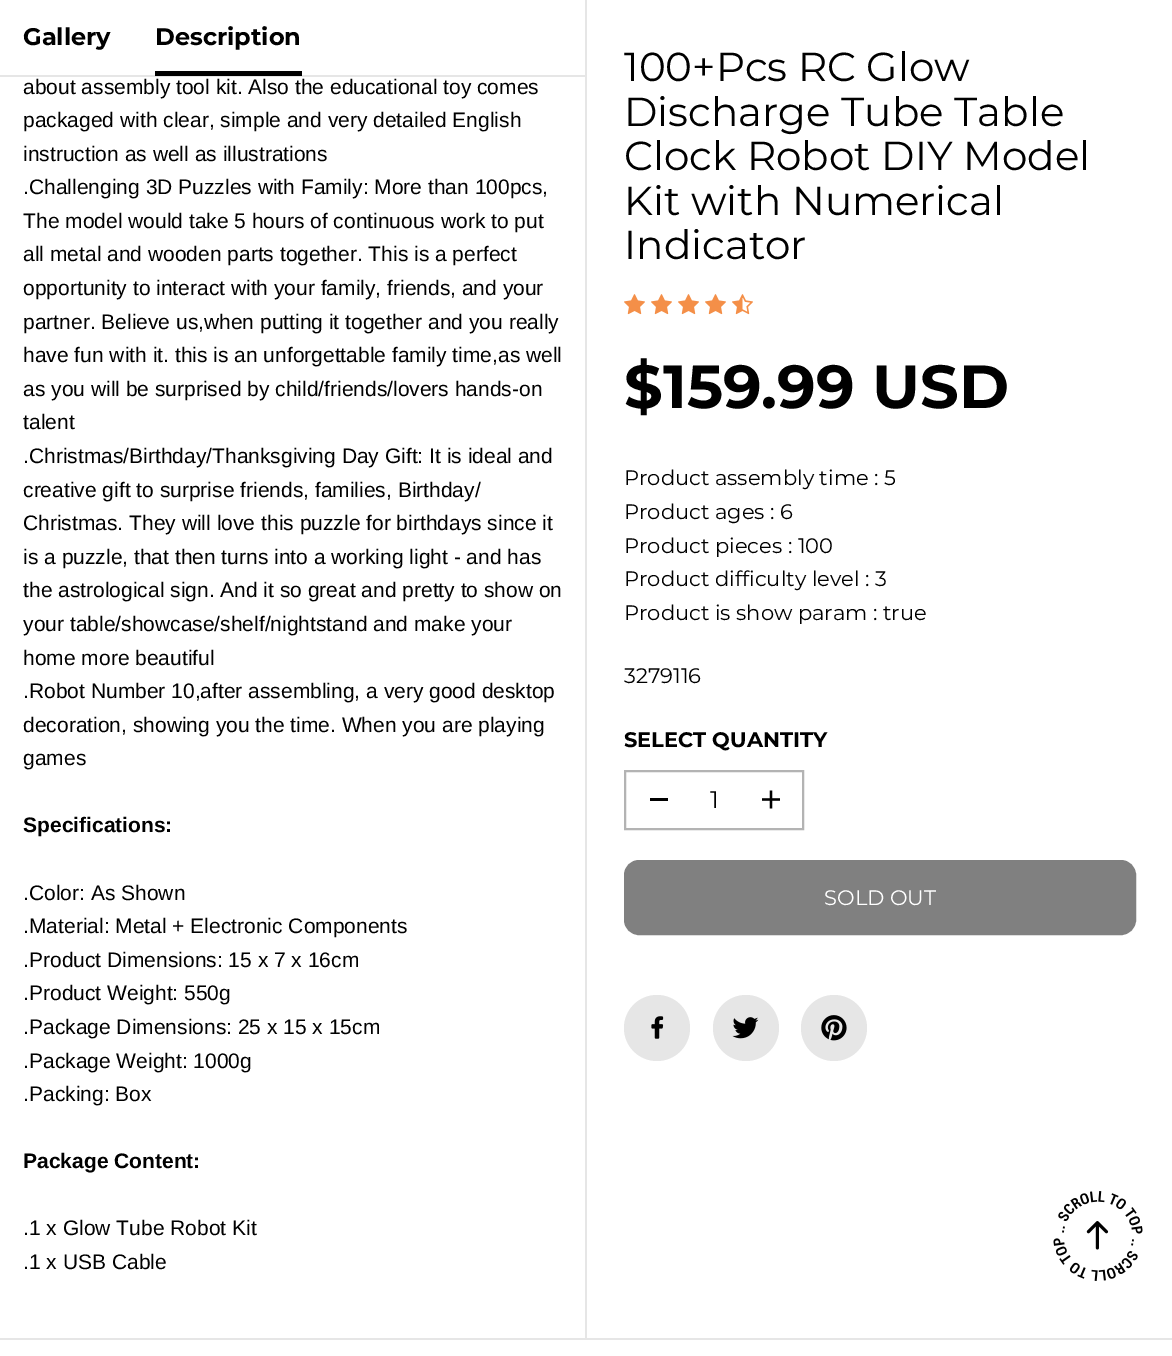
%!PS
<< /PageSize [1172 1356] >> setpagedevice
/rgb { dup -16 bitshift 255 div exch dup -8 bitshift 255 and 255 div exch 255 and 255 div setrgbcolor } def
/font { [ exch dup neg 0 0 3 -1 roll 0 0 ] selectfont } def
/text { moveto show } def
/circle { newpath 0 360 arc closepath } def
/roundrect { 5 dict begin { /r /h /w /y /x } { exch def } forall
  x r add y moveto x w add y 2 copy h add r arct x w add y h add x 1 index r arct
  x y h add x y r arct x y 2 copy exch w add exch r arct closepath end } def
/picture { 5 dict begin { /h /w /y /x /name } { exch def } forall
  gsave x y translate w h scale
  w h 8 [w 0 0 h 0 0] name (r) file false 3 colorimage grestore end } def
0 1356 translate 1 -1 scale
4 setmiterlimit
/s1 { /Montserrat-Bold 24 font 16#000000 rgb } def
/s2 { /LiberationSans-Regular 21 font 16#000000 rgb } def
/s3 { /LiberationSans-Bold 21 font 16#000000 rgb } def
/s4 { /Montserrat-Regular 40.5 font 16#000000 rgb } def
/s5 { /Montserrat-Bold 60.75 font 16#000000 rgb } def
/s6 { /Montserrat-Regular 21 font 16#000000 rgb } def
/s7 { /Montserrat-Bold 21 font 16#000000 rgb } def
/s8 { /Montserrat-Regular 24 font 16#000000 rgb } def
/s9 { /Montserrat-Regular 21 font 16#FFFFFF rgb } def
16#FFFFFF rgb
0 0 1172 1356 rectfill
16#E6E6E6 rgb
0 1338 1172 2 rectfill
585 0 2 1338 rectfill
0 75 585 2 rectfill
s1
(Gallery) 23 45 text
(Description) 155 45 text
155 71 147 5 rectfill
s2
(about assembly tool kit. Also the educational toy comes) 23 94 text
(packaged with clear, simple and very detailed English) 23 127 text
(instruction as well as illustrations) 23 161 text
(.Challenging 3D Puzzles with Family: More than 100pcs,) 23 194 text
(The model would take 5 hours of continuous work to put) 23 228 text
(all metal and wooden parts together. This is a perfect) 23 261 text
(opportunity to interact with your family, friends, and your) 23 295 text
(partner. Believe us,when putting it together and you really) 23 329 text
(have fun with it. this is an unforgettable family time,as well) 23 362 text
(as you will be surprised by child/friends/lovers hands-on) 23 396 text
(talent) 23 429 text
(.Christmas/Birthday/Thanksgiving Day Gift: It is ideal and) 23 463 text
(creative gift to surprise friends, families, Birthday/) 23 497 text
(Christmas. They will love this puzzle for birthdays since it) 23 530 text
(is a puzzle, that then turns into a working light - and has) 23 564 text
(the astrological sign. And it so great and pretty to show on) 23 597 text
(your table/showcase/shelf/nightstand and make your) 23 631 text
(home more beautiful) 23 665 text
(.Robot Number 10,after assembling, a very good desktop) 23 698 text
(decoration, showing you the time. When you are playing) 23 732 text
(games) 23 765 text
s3
(Specifications:) 23 832 text
s2
(.Color: As Shown) 23 900 text
(.Material: Metal + Electronic Components) 23 933 text
(.Product Dimensions: 15 x 7 x 16cm) 23 967 text
(.Product Weight: 550g) 23 1000 text
(.Package Dimensions: 25 x 15 x 15cm) 23 1034 text
(.Package Weight: 1000g) 23 1068 text
(.Packing: Box) 23 1101 text
s3
(Package Content:) 23 1168 text
s2
(.1 x Glow Tube Robot Kit) 23 1235 text
(.1 x USB Cable) 23 1269 text
s4
(100+Pcs RC Glow) 624 81 text
(Discharge Tube Table) 624 126 text
(Clock Robot DIY Model) 624 170 text
(Kit with Numerical) 624 215 text
(Indicator) 624 259 text
(pic1.raw) 624 294 21 21 picture
(pic1.raw) 651 294 21 21 picture
(pic1.raw) 678 294 21 21 picture
(pic1.raw) 705 294 21 21 picture
(pic2.raw) 732 294 21 21 picture
s5
($159.99 USD) 624 408 text
s6
(Product assembly time : 5) 624 485 text
(Product ages : 6) 624 519 text
(Product pieces : 100) 624 553 text
(Product difficulty level : 3) 624 586 text
(Product is show param : true) 624 620 text
(3279116) 624 683 text
s7
(SELECT QUANTITY) 624 747 text
16#B3B3B3 rgb
2 setlinewidth
625 771 178 58 rectstroke
16#000000 rgb
650 798 18 3 rectfill
s8
(1) 710 808 text
(pic3.raw) 762 790 18 19 picture
16#808080 rgb
625 861 510 73 14 roundrect gsave fill grestore
stroke
s9
(SOLD OUT) 824 905 text
16#E6E6E6 rgb
657 1028 33 circle fill
(pic4.raw) 651 1016 13 23 picture
746 1028 33 circle fill
(pic5.raw) 732 1017 27 22 picture
834 1028 33 circle fill
(pic6.raw) 821 1015 26 26 picture
(pic8.raw) 1086 1221 23 29 picture
(pic7.raw) 1053 1191 90 90 picture
showpage
